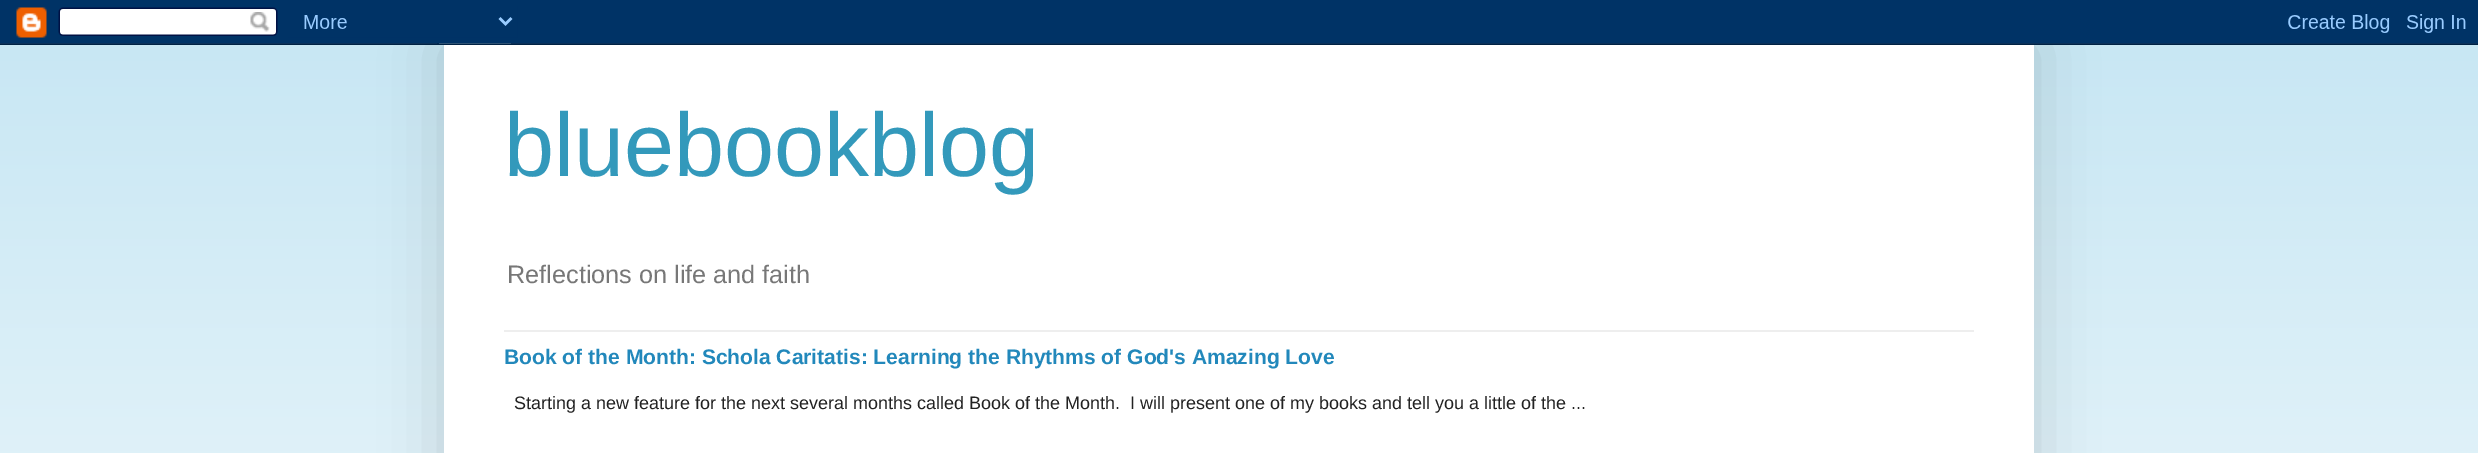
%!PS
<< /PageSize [2478 453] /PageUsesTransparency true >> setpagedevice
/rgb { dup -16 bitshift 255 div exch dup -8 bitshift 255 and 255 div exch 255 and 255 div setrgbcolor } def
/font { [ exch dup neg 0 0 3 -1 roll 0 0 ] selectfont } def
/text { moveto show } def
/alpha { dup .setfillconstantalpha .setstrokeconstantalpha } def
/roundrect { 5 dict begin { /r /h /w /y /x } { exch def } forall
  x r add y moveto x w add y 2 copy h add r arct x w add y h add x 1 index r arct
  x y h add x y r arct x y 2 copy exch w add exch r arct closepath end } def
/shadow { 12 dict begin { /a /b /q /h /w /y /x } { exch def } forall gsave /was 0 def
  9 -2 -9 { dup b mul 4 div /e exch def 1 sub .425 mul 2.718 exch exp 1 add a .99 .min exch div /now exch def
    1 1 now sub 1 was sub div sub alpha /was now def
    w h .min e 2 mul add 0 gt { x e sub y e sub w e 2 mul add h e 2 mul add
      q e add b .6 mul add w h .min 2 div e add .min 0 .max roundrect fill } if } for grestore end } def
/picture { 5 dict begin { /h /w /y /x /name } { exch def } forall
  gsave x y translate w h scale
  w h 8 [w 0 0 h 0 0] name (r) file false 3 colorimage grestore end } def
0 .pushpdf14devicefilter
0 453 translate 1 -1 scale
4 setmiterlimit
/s1 { /LiberationSans-Regular 90 font 16#3399BB rgb } def
/s2 { /LiberationSans-Regular 25.25 font 16#777777 rgb } def
/s3 { /LiberationSans-Bold 21.05 font 16#2288BB rgb } def
/s4 { /LiberationSans-Regular 18 font 16#222222 rgb } def
16#C2E4F2 rgb
0 0 2478 453 rectfill
(pic2.raw) 0 43 2478 410 picture
16#000000 rgb
444 45 1590 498 0 30 0.15 shadow
(pic1.raw) 0 0 2478 45 picture
16#FFFFFF rgb
444 45 1590 408 rectfill
s1
(bluebookblog) 504 176 text
s2
(Reflections on life and faith) 507 283 text
16#EEEEEE rgb
504 330 1470 2 rectfill
s3
(Book of the Month: Schola Caritatis: Learning the Rhythms of God's Amazing Love) 504 364 text
s4
(Starting a new feature for the next several months called Book of the Month.  I will present one of my books and tell you a little of the ...) 514 409 text
.poppdf14devicefilter showpage
